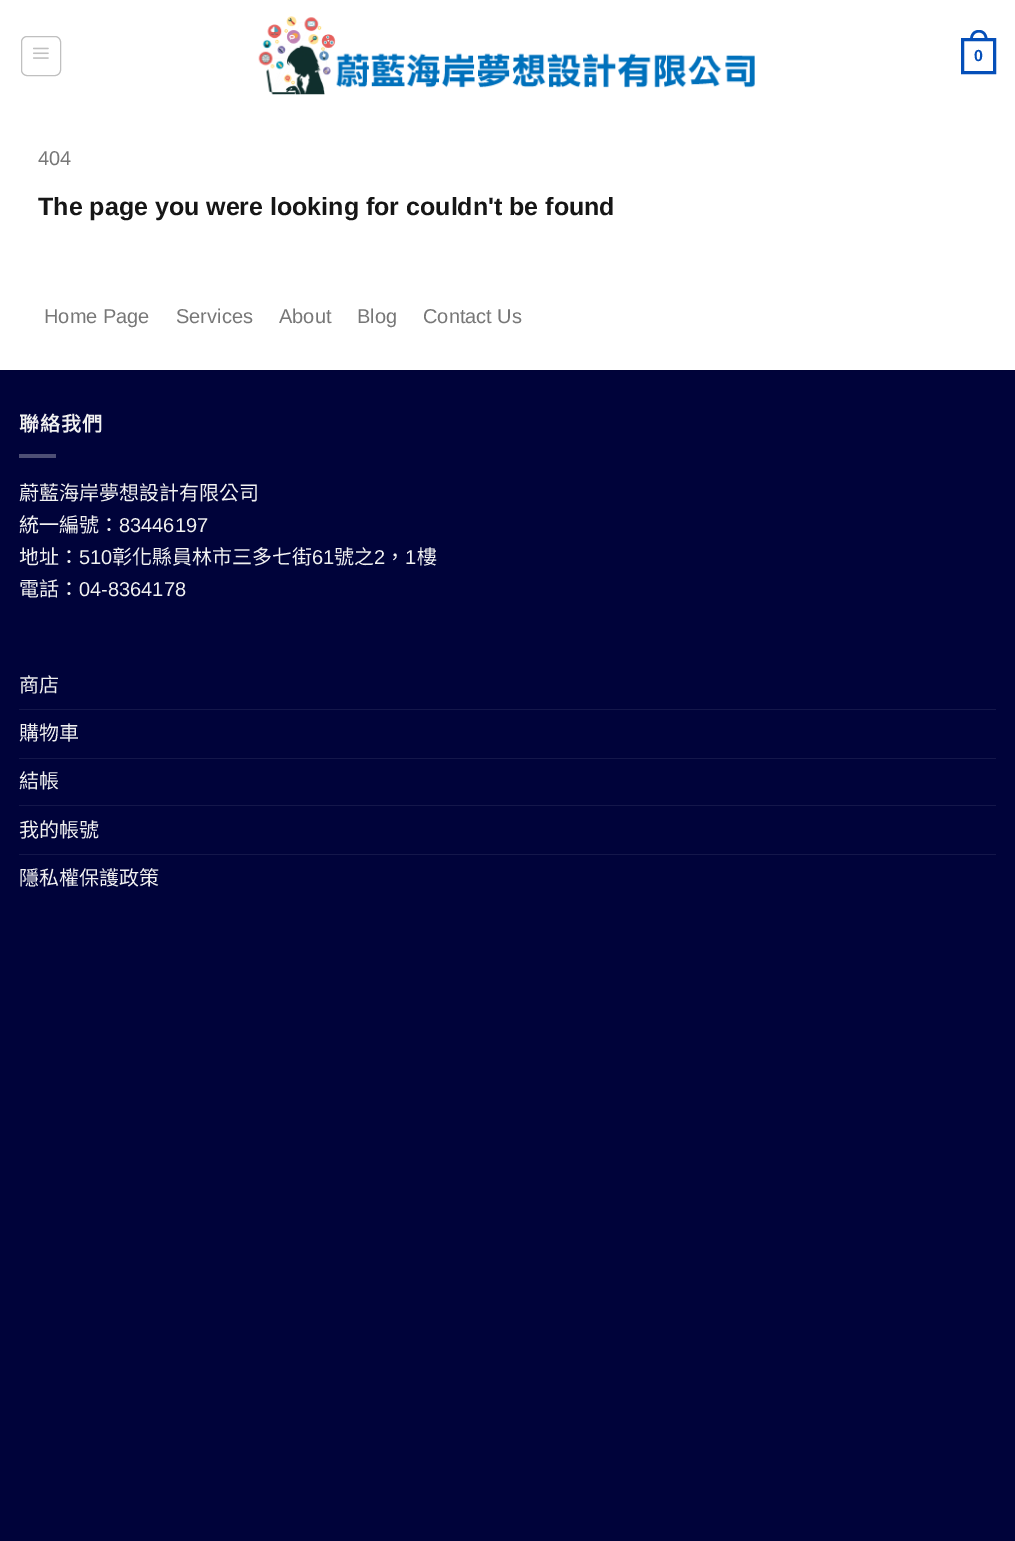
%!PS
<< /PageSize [1015 1541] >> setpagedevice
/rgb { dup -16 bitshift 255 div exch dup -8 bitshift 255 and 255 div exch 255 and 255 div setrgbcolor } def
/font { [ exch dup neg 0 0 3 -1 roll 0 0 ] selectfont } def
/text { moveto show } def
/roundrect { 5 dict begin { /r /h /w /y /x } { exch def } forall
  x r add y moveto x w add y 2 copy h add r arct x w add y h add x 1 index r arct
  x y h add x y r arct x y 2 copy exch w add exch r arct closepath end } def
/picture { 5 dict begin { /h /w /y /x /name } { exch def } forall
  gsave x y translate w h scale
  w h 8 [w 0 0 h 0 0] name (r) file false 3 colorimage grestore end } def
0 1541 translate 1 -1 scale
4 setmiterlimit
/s1 { /LiberationSans-Bold 16 font 16#054FB9 rgb } def
/s2 { /LiberationSans-Regular 20 font 16#777777 rgb } def
/s3 { /LiberationSans-Bold 25 font 16#161616 rgb } def
/s4 { /NotoSansCJKTC-Regular 20 font 16#F1F1F1 rgb } def
/s5 { /LiberationSans-Regular 20 font 16#F1F1F1 rgb } def
16#00033A rgb
0 0 1015 1541 rectfill
16#FFFFFF rgb
0 0 1015 370 rectfill
16#C0C0C0 rgb
21.5 36.5 39 39 5.5 roundrect stroke
(pic1.raw) 33 47 16 12 picture
(pic2.raw) 258 16 497 79 picture
16#054FB9 rgb
3 setlinewidth
962.5 39.5 32 33 rectstroke
979 30 moveto 984.5 30 987.5 34.5 987.5 40 curveto 970 40 lineto 970 34.5 973 30 979 30 curveto closepath 979 32.5 moveto 983 32.5 985 36 985 40 curveto 972.5 40 lineto 972.5 36 974.5 32.5 979 32.5 curveto closepath eofill
s1
(0) 974 61 text
s2
(404) 38 165 text
s3
(The page you were looking for couldn't be found) 38 215 text
s2
(Home Page) 44 323 text
(Services) 176 323 text
(About) 279 323 text
(Blog) 357 323 text
(Contact Us) 423 323 text
16#000337 rgb
0 370 1015 1 rectfill
/NotoSansCJKTC-Bold 20 font
16#F1F1F1 rgb
19 431 moveto 1 0 (聯絡我們) ashow
16#4D4F75 rgb
19 454 37 4 rectfill
s4
(蔚藍海岸夢想設計有限公司) 19 500 text
(統一編號：) 19 532 text
s5
(83446197) 119 532 text
s4
(地址：) 19 564 text
s5
(510) 79 564 text
s4
(彰化縣員林市三多七街) 112 564 text
s5
(61) 312 564 text
s4
(號之) 334 564 text
s5
(2) 374 564 text
s4
(，) 385 564 text
s5
(1) 405 564 text
s4
(樓) 417 564 text
(電話：) 19 596 text
s5
(04-8364178) 79 596 text
s4
(商店) 19 692 text
16#14174A rgb
19 709 977 1 rectfill
s4
(購物車) 19 740 text
16#14174A rgb
19 758 977 1 rectfill
s4
(結帳) 19 788 text
16#14174A rgb
19 805 977 1 rectfill
s4
(我的帳號) 19 837 text
16#14174A rgb
19 854 977 1 rectfill
s4
(隱私權保護政策) 19 885 text
showpage
